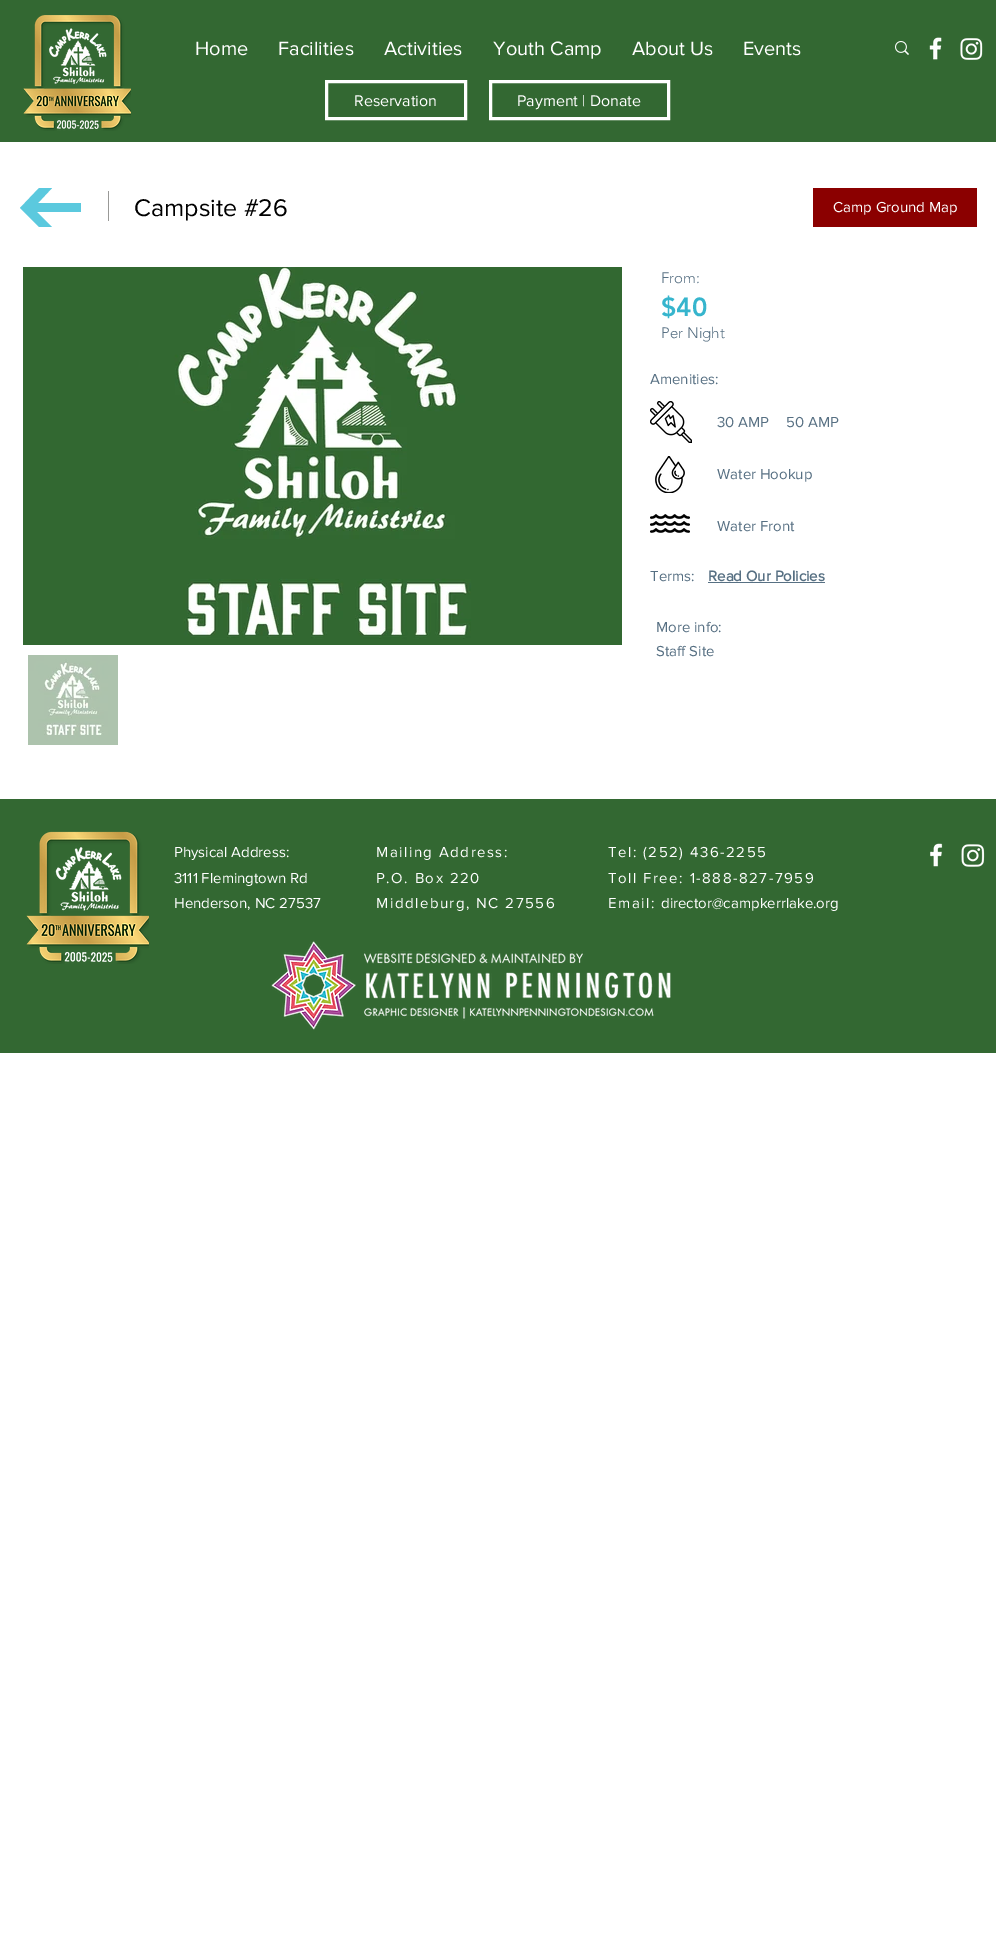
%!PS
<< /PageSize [996 1957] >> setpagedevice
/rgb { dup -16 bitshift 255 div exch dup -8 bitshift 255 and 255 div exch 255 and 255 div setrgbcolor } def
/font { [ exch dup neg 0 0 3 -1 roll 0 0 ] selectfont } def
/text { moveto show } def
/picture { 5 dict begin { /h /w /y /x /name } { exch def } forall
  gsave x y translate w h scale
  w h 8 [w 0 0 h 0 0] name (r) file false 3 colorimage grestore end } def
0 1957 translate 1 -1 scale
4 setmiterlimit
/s1 { /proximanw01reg-Regular 20 font 16#FFFFFF rgb } def
/s2 { /proximanw01reg-Regular 16 font 16#FFFFFF rgb } def
/s3 { /proximanw01reg-Regular 25 font 16#000000 rgb } def
/s4 { /proximanw01reg-Regular 15 font 16#FFFFFF rgb } def
/s5 { /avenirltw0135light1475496-Light 15 font 16#577083 rgb } def
/s6 { /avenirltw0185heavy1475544-Black 26 font 16#36B5CD rgb } def
/s7 { /proximanw01reg-Regular 15 font 16#577083 rgb } def
/s8 { /proximanw01reg-Bold 15 font 16#577083 rgb } def
16#FFFFFF rgb
0 0 996 1957 rectfill
16#336832 rgb
0 0 996 142 rectfill
(pic1.raw) 23 15 108 116 picture
s1
(Home) 195 55 text
(Facilities) 278 55 text
(Activities) 384 55 text
(Youth Camp) 493 55 text
(About Us) 632 55 text
(Events) 743 55 text
(pic2.raw) 895 41 14 14 picture
(pic3.raw) 929 37 13 23 picture
(pic4.raw) 960 38 23 22 picture
3 setlinewidth
326.5 81.5 139 37 rectstroke
s2
(Reservation) 354 106 text
490.5 81.5 178 37 rectstroke
(Payment | Donate) 517 106 text
16#5BC9DE rgb
39 188 moveto 20 208 lineto 39 227 lineto 52 227 lineto 37 212 lineto 81 212 lineto 81 203 lineto 38 203 lineto 52 188 lineto closepath fill
16#999997 rgb
108 191 1 30 rectfill
s3
(Campsite #26) 134 216 text
16#8B0000 rgb
813 188 164 39 rectfill
s4
(Camp Ground Map) 833 212 text
(pic5.raw) 23 267 599 378 picture
(pic6.raw) 28 655 90 90 picture
s5
(From:) 661 283 text
s6
($40) 661 316 text
s5
(Per Night) 661 338 text
s7
(Amenities:) 650 384 text
(pic7.raw) 650 401 42 42 picture
(30 AMP) 717 427 text
(50 AMP) 786 427 text
(pic8.raw) 655 456 30 37 picture
(Water Hookup) 717 479 text
(pic9.raw) 650 514 40 19 picture
(Water Front) 717 531 text
(Terms:) 650 581 text
s8
(Read Our Policies) 708 581 text
708 582 117 1 rectfill
s7
(More info:) 656 632 text
(Staff Site) 656 656 text
16#336832 rgb
0 799 996 254 rectfill
(pic10.raw) 26 831 123 133 picture
s4
(Physical Address:) 174 857 text
(3111 Flemingtown Rd) 174 883 text
(Henderson, NC 27537) 174 908 text
376 857 moveto 1.5 0 (Mailing Address:) ashow
376 883 moveto 1.5 0 (P.O. Box 220) ashow
376 908 moveto 1.5 0 (Middleburg, NC 27556) ashow
608 857 moveto 1.5 0 (Tel: \(252\) 436-2255) ashow
608 883 moveto 1.5 0 (Toll Free: 1-888-827-7959) ashow
608 908 moveto 1.5 0 (Email:) ashow
(director@campkerrlake.org) 661 908 text
(pic11.raw) 930 843 13 24 picture
(pic12.raw) 961 844 24 23 picture
(pic13.raw) 271 941 400 89 picture
showpage
